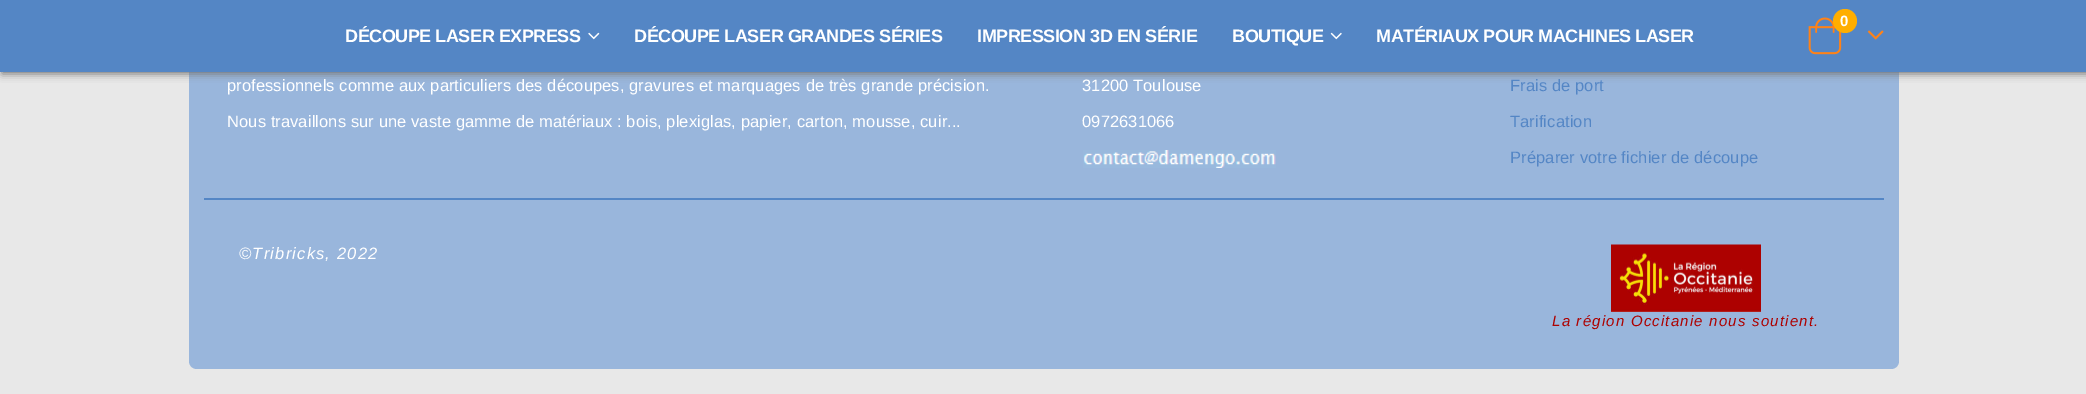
%!PS
<< /PageSize [2086 394] /PageUsesTransparency true >> setpagedevice
/rgb { dup -16 bitshift 255 div exch dup -8 bitshift 255 and 255 div exch 255 and 255 div setrgbcolor } def
/font { [ exch dup neg 0 0 3 -1 roll 0 0 ] selectfont } def
/text { moveto show } def
/alpha { dup .setfillconstantalpha .setstrokeconstantalpha } def
/circle { newpath 0 360 arc closepath } def
/roundrect { 5 dict begin { /r /h /w /y /x } { exch def } forall
  x r add y moveto x w add y 2 copy h add r arct x w add y h add x 1 index r arct
  x y h add x y r arct x y 2 copy exch w add exch r arct closepath end } def
/shadow { 12 dict begin { /a /b /q /h /w /y /x } { exch def } forall gsave /was 0 def
  9 -2 -9 { dup b mul 4 div /e exch def 1 sub .425 mul 2.718 exch exp 1 add a .99 .min exch div /now exch def
    1 1 now sub 1 was sub div sub alpha /was now def
    w h .min e 2 mul add 0 gt { x e sub y e sub w e 2 mul add h e 2 mul add
      q e add b .6 mul add w h .min 2 div e add .min 0 .max roundrect fill } if } for grestore end } def
/picture { 5 dict begin { /h /w /y /x /name } { exch def } forall
  gsave x y translate w h scale
  w h 8 [w 0 0 h 0 0] name (r) file false 3 colorimage grestore end } def
0 .pushpdf14devicefilter
0 394 translate 1 -1 scale
4 setmiterlimit
/s1 { /LiberationSans-Bold 15 font 16#FFFFFF rgb } def
16#E8E8E8 rgb
0 0 2086 394 rectfill
16#99B6DC rgb
189 72 1710 104 rectfill
16#777777 rgb
2 2 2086 72 0 4 1 shadow
16#5486C5 rgb
0 0 2086 72 rectfill
(pic1.raw) 1808 17 34 38 picture
16#FFAE00 rgb
1845 21 12 circle fill
s1
(0) 1840 26 text
(pic2.raw) 1867 30 17 10 picture
/LiberationSans-Bold 18 font
345 42 moveto -0.45 0 (DÉCOUPE LASER EXPRESS) ashow
(pic3.raw) 588 32 12 8 picture
634 42 moveto -0.45 0 (DÉCOUPE LASER GRANDES SÉRIES) ashow
977 42 moveto -0.45 0 (IMPRESSION 3D EN SÉRIE) ashow
1232 42 moveto -0.45 0 (BOUTIQUE) ashow
(pic4.raw) 1330 32 12 8 picture
1376 42 moveto -0.45 0 (MATÉRIAUX POUR MACHINES LASER) ashow
/LiberationSans-Regular 16.5 font
227 91 moveto 0.1 0 (professionnels comme aux particuliers des découpes, gravures et marquages de très grande précision.) ashow
227 127 moveto 0.1 0 (Nous travaillons sur une vaste gamme de matériaux : bois, plexiglas, papier, carton, mousse, cuir...) ashow
1082 91 moveto 0.1 0 (31200 Toulouse) ashow
1082 127 moveto 0.1 0 (0972631066) ashow
(pic5.raw) 1083 150 193 18 picture
16#5486C5 rgb
1510 91 moveto 0.1 0 (Frais de port) ashow
1510 127 moveto 0.1 0 (Tarification) ashow
1510 163 moveto 0.1 0 (Préparer votre fichier de découpe) ashow
16#99B6DC rgb
189 176 moveto 1899 176 lineto 1899 361 lineto 1899 365.5 1895.5 369 1891 369 curveto 197 369 lineto 192.5 369 189 365.5 189 361 curveto closepath fill
16#5486C5 rgb
204 198 1680 2 rectfill
/LiberationSans-Italic 16.5 font
16#FFFFFF rgb
239 259 moveto 1.2 0 (©Tribricks, 2022) ashow
(pic6.raw) 1611 244 150 68 picture
/LiberationSans-Italic 15 font
16#AD0100 rgb
1552 326 moveto 1.2 0 (La région Occitanie nous soutient.) ashow
.poppdf14devicefilter showpage
